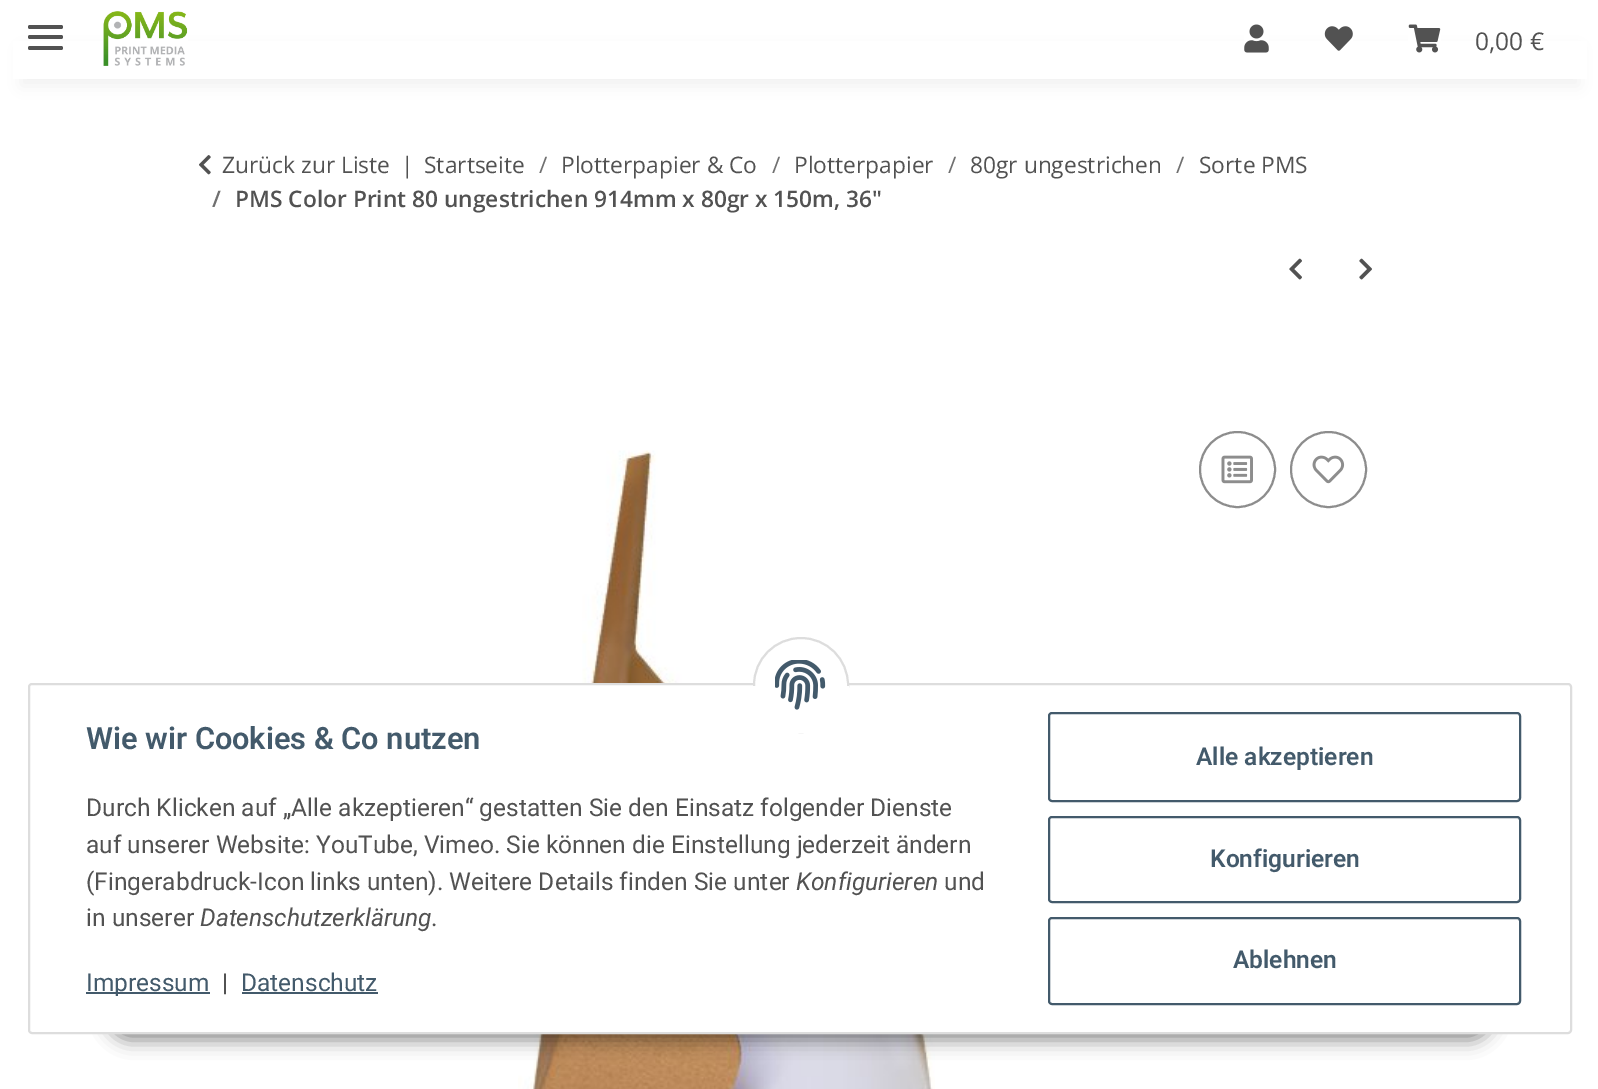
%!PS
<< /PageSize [1598 1089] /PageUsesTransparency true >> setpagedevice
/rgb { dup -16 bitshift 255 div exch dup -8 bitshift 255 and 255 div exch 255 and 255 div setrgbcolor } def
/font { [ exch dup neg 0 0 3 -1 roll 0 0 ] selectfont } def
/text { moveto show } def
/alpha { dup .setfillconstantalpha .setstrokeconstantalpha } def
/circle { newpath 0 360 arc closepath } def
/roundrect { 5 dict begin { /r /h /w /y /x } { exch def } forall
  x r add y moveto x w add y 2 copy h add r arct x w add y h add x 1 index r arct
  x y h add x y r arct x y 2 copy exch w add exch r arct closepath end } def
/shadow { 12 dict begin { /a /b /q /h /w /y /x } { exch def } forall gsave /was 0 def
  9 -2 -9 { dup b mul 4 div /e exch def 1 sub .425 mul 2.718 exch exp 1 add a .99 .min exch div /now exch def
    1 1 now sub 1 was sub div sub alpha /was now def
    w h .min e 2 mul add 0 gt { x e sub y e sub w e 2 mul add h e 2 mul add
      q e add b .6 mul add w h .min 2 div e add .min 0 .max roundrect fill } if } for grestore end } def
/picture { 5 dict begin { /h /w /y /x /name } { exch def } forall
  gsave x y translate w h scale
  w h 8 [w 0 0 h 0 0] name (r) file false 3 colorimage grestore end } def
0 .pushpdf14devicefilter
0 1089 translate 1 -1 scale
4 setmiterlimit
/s1 { /OpenSans-Regular 24.5 font 16#525252 rgb } def
/s2 { /OpenSans-Regular 22.75 font 16#525252 rgb } def
/s3 { /OpenSans-Regular 22.75 font 16#707070 rgb } def
/s4 { /OpenSans-SemiBold 22.75 font 16#707070 rgb } def
/s5 { /OpenSans-SemiBold 22.75 font 16#525252 rgb } def
/s6 { /Roboto-SemiBold 30.75 font 16#435A6B rgb } def
/s7 { /Roboto-Regular 24.5 font 16#525252 rgb } def
/s8 { /Roboto-Italic 24.5 font 16#525252 rgb } def
/s9 { /Roboto-Regular 24.5 font 16#435A6B rgb } def
/s10 { /Roboto-SemiBold 24.5 font 16#435A6B rgb } def
16#FFFFFF rgb
0 0 1598 1089 rectfill
16#000000 rgb
21 49 1558 37 0 8 0.06 shadow
16#FFFFFF rgb
13 41 1574 38 rectfill
16#525252 rgb
28 35 35 4 2 roundrect fill
28 25 35 4 2 roundrect fill
28 46 35 4 2 roundrect fill
(pic1.raw) 103 11 85 55 picture
(pic2.raw) 1244 24 25 29 picture
(pic3.raw) 1324 26 29 25 picture
(pic4.raw) 1408 24 33 29 picture
s1
(0,00 €) 1475 50 text
(pic5.raw) 199 155 12 20 picture
s2
(Zurück zur Liste) 222 173 text
(|) 401 173 text
(Startseite) 424 173 text
s3
(/) 539 173 text
s2
(Plotterpapier & Co) 561 173 text
s3
(/) 772 173 text
s2
(Plotterpapier) 794 173 text
s3
(/) 948 173 text
s2
(80gr ungestrichen) 970 173 text
s3
(/) 1176 173 text
s2
(Sorte PMS) 1199 173 text
s4
(/) 212 207 text
s5
(PMS Color Print 80 ungestrichen 914mm x 80gr x 150m, 36") 235 207 text
(pic6.raw) 1289 258 13 22 picture
(pic7.raw) 1359 258 13 22 picture
(pic8.raw) 518 450 417 639 picture
16#8D8D8D rgb
2 setlinewidth
1237.5 469.5 37.5 circle stroke
(pic9.raw) 1221 455 32 29 picture
1328.5 469.5 37.5 circle stroke
(pic10.raw) 1312 455 33 29 picture
16#000000 rgb
107 984 1386 56 28 9 0.45 shadow
16#FFFFFF rgb
29 684 1542 349 3 roundrect gsave fill grestore
16#DDDDDD rgb
stroke
16#FFFFFF rgb
801 685 47 circle gsave fill grestore
16#DDDDDD rgb
stroke
16#FFFFFF rgb
753 686 96 47 rectfill
(pic11.raw) 775 660 51 50 picture
s6
(Wie wir Cookies & Co nutzen) 86 749 text
s7
(Durch Klicken auf „Alle akzeptieren“ gestatten Sie den Einsatz folgender Dienste) 86 816 text
(auf unserer Website: YouTube, Vimeo. Sie können die Einstellung jederzeit ändern) 86 853 text
(\(Fingerabdruck-Icon links unten\). Weitere Details finden Sie unter) 86 890 text
s8
(Konfigurieren) 796 890 text
s7
(und) 944 890 text
(in unserer) 86 926 text
s8
(Datenschutzerklärung) 200 926 text
s7
(.) 431 926 text
16#435A6B rgb
86 992 124 2 rectfill
(Impressum) 86 991 text
s7
(|) 222 991 text
s9
(Datenschutz) 241 991 text
242 992 136 2 rectfill
1049 713 471 88 3 roundrect stroke
s10
(Alle akzeptieren) 1196 765 text
1049 817 471 85 3 roundrect stroke
(Konfigurieren) 1210 867 text
1049 918 471 86 3 roundrect stroke
(Ablehnen) 1233 968 text
.poppdf14devicefilter showpage
